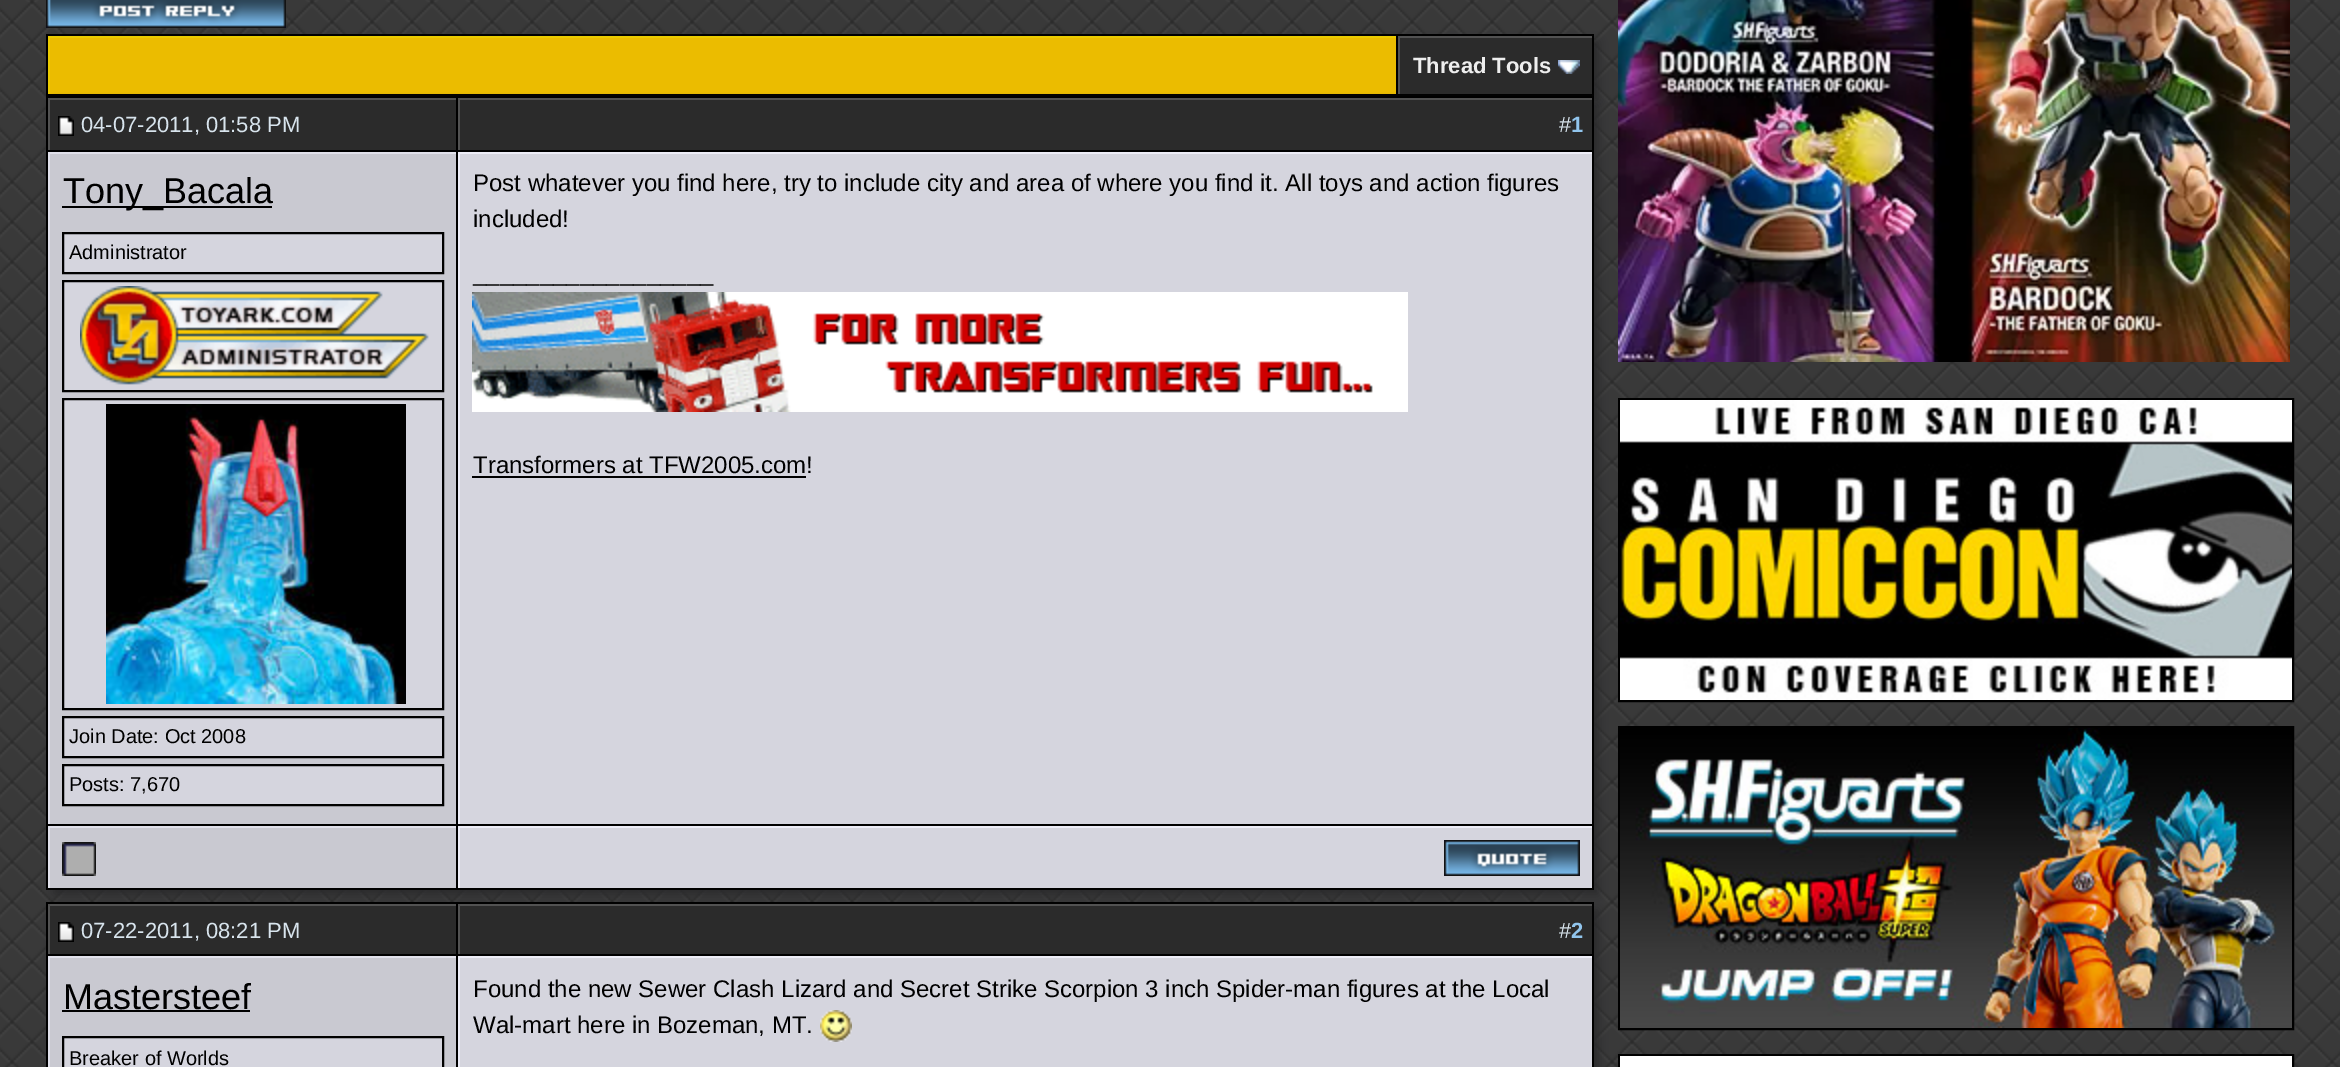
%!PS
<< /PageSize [2340 1067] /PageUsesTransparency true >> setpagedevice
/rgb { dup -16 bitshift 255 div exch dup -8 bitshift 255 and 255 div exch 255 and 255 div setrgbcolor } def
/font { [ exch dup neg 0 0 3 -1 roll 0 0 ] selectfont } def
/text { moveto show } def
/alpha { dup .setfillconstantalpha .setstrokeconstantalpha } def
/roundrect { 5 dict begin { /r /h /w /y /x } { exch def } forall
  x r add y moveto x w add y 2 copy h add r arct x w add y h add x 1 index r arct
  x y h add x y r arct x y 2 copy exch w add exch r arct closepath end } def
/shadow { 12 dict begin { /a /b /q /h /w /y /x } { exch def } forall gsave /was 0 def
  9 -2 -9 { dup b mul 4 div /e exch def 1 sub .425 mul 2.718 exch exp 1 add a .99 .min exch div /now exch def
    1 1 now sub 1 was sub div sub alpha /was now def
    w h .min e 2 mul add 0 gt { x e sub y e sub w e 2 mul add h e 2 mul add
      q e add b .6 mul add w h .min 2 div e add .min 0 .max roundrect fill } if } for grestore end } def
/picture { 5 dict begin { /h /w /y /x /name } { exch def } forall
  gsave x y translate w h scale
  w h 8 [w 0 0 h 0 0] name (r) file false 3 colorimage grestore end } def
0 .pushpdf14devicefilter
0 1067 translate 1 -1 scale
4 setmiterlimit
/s1 { /LiberationSans-Bold 22 font 16#EEEEEE rgb } def
/s2 { /LiberationSans-Regular 22 font 16#D8E4ED rgb } def
/s3 { /LiberationSans-Bold 22 font 16#91C5ED rgb } def
/s4 { /LiberationSans-Regular 36 font 16#000000 rgb } def
/s5 { /LiberationSans-Regular 20 font 16#000000 rgb } def
/s6 { /LiberationSans-Regular 24 font 16#000000 rgb } def
16#FFFFFF rgb
0 0 2340 1067 rectfill
(pic1.raw) 0 0 2340 1067 picture
16#29292B rgb
54 42 1544 58 0 5 1 shadow
(pic2.raw) 46 0 240 28 picture
16#000000 rgb
46 34 1548 62 rectfill
16#EBBC00 rgb
50 38 1346 56 rectfill
16#EBCB00 rgb
48 36 1348 2 rectfill
48 36 2 58 rectfill
16#2B2B2B rgb
1400 38 192 56 rectfill
16#525252 rgb
1398 36 194 2 rectfill
1398 36 2 58 rectfill
s1
(Thread Tools) 1413 73 text
(pic3.raw) 1558 60 22 14 picture
16#29292B rgb
54 104 1544 790 0 5 1 shadow
16#000000 rgb
46 96 1548 794 rectfill
16#2B2B2B rgb
50 100 406 50 rectfill
16#525252 rgb
48 98 408 2 rectfill
48 98 2 52 rectfill
(pic4.raw) 58 116 16 20 picture
s2
(04-07-2011, 01:58 PM) 81 132 text
16#2B2B2B rgb
460 100 1132 50 rectfill
16#525252 rgb
458 98 1134 2 rectfill
458 98 2 52 rectfill
s2
(#) 1559 132 text
s3
(1) 1571 132 text
16#C9C9D1 rgb
50 154 406 670 rectfill
16#E1E1EB rgb
48 152 408 2 rectfill
48 152 2 672 rectfill
16#000000 rgb
62 206 210 2 rectfill
s4
(Tony_Bacala) 63 203 text
16#D5D5DE rgb
63 233 moveto 443 233 lineto 443 273 lineto 63 273 lineto closepath gsave fill grestore
16#000000 rgb
2 setlinewidth
stroke
s5
(Administrator) 69 259 text
16#D5D5DE rgb
63 281 moveto 443 281 lineto 443 391 lineto 63 391 lineto closepath gsave fill grestore
16#000000 rgb
stroke
(pic5.raw) 80 286 349 99 picture
16#D5D5DE rgb
63 399 moveto 443 399 lineto 443 709 lineto 63 709 lineto closepath gsave fill grestore
16#000000 rgb
stroke
(pic6.raw) 106 404 300 300 picture
16#D5D5DE rgb
63 717 moveto 443 717 lineto 443 757 lineto 63 757 lineto closepath gsave fill grestore
16#000000 rgb
stroke
(Join Date: Oct 2008) 69 743 text
16#D5D5DE rgb
63 765 moveto 443 765 lineto 443 805 lineto 63 805 lineto closepath gsave fill grestore
16#000000 rgb
stroke
(Posts: 7,670) 69 791 text
16#D5D5DE rgb
460 154 1132 670 rectfill
16#EDEDF7 rgb
458 152 1134 2 rectfill
458 152 2 672 rectfill
s6
(Post whatever you find here, try to include city and area of where you find it. All toys and action figures) 473 191 text
(included!) 473 227 text
(__________________) 473 281 text
(pic7.raw) 472 292 936 120 picture
(Transformers at TFW2005.com!) 473 473 text
472 476 334 2 rectfill
16#C9C9D1 rgb
50 828 406 60 rectfill
16#E1E1EB rgb
48 826 408 2 rectfill
48 826 2 62 rectfill
(pic8.raw) 62 842 34 34 picture
16#D5D5DE rgb
460 828 1132 60 rectfill
16#EDEDF7 rgb
458 826 1134 2 rectfill
458 826 2 62 rectfill
(pic9.raw) 1444 840 136 36 picture
16#29292B rgb
54 910 1544 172 0 5 1 shadow
16#000000 rgb
46 902 1548 165 rectfill
16#2B2B2B rgb
50 906 406 48 rectfill
16#525252 rgb
48 904 408 2 rectfill
48 904 2 50 rectfill
(pic4.raw) 58 922 16 20 picture
s2
(07-22-2011, 08:21 PM) 81 938 text
16#2B2B2B rgb
460 906 1132 48 rectfill
16#525252 rgb
458 904 1134 2 rectfill
458 904 2 50 rectfill
s2
(#) 1559 938 text
s3
(2) 1571 938 text
16#C9C9D1 rgb
50 958 406 109 rectfill
16#E1E1EB rgb
48 956 408 2 rectfill
48 956 2 111 rectfill
s4
(Mastersteef) 63 1009 text
62 1010 188 2 rectfill
16#D5D5DE rgb
63 1037 moveto 443 1037 lineto 443 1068 lineto 63 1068 lineto closepath gsave fill grestore
16#000000 rgb
stroke
s5
(Breaker of Worlds) 69 1065 text
16#D5D5DE rgb
460 958 1132 109 rectfill
16#EDEDF7 rgb
458 956 1134 2 rectfill
458 956 2 111 rectfill
s6
(Found the new Sewer Clash Lizard and Secret Strike Scorpion 3 inch Spider-man figures at the Local) 473 997 text
(Wal-mart here in Bozeman, MT.) 473 1033 text
(pic10.raw) 820 1010 32 32 picture
(pic11.raw) 1618 0 672 362 picture
1619 399 674 302 rectstroke
(pic12.raw) 1620 400 672 300 picture
1619 727 674 302 rectstroke
(pic13.raw) 1620 728 672 300 picture
1619 1055 674 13 rectstroke
16#FFFFFF rgb
1620 1056 672 11 rectfill
.poppdf14devicefilter showpage
